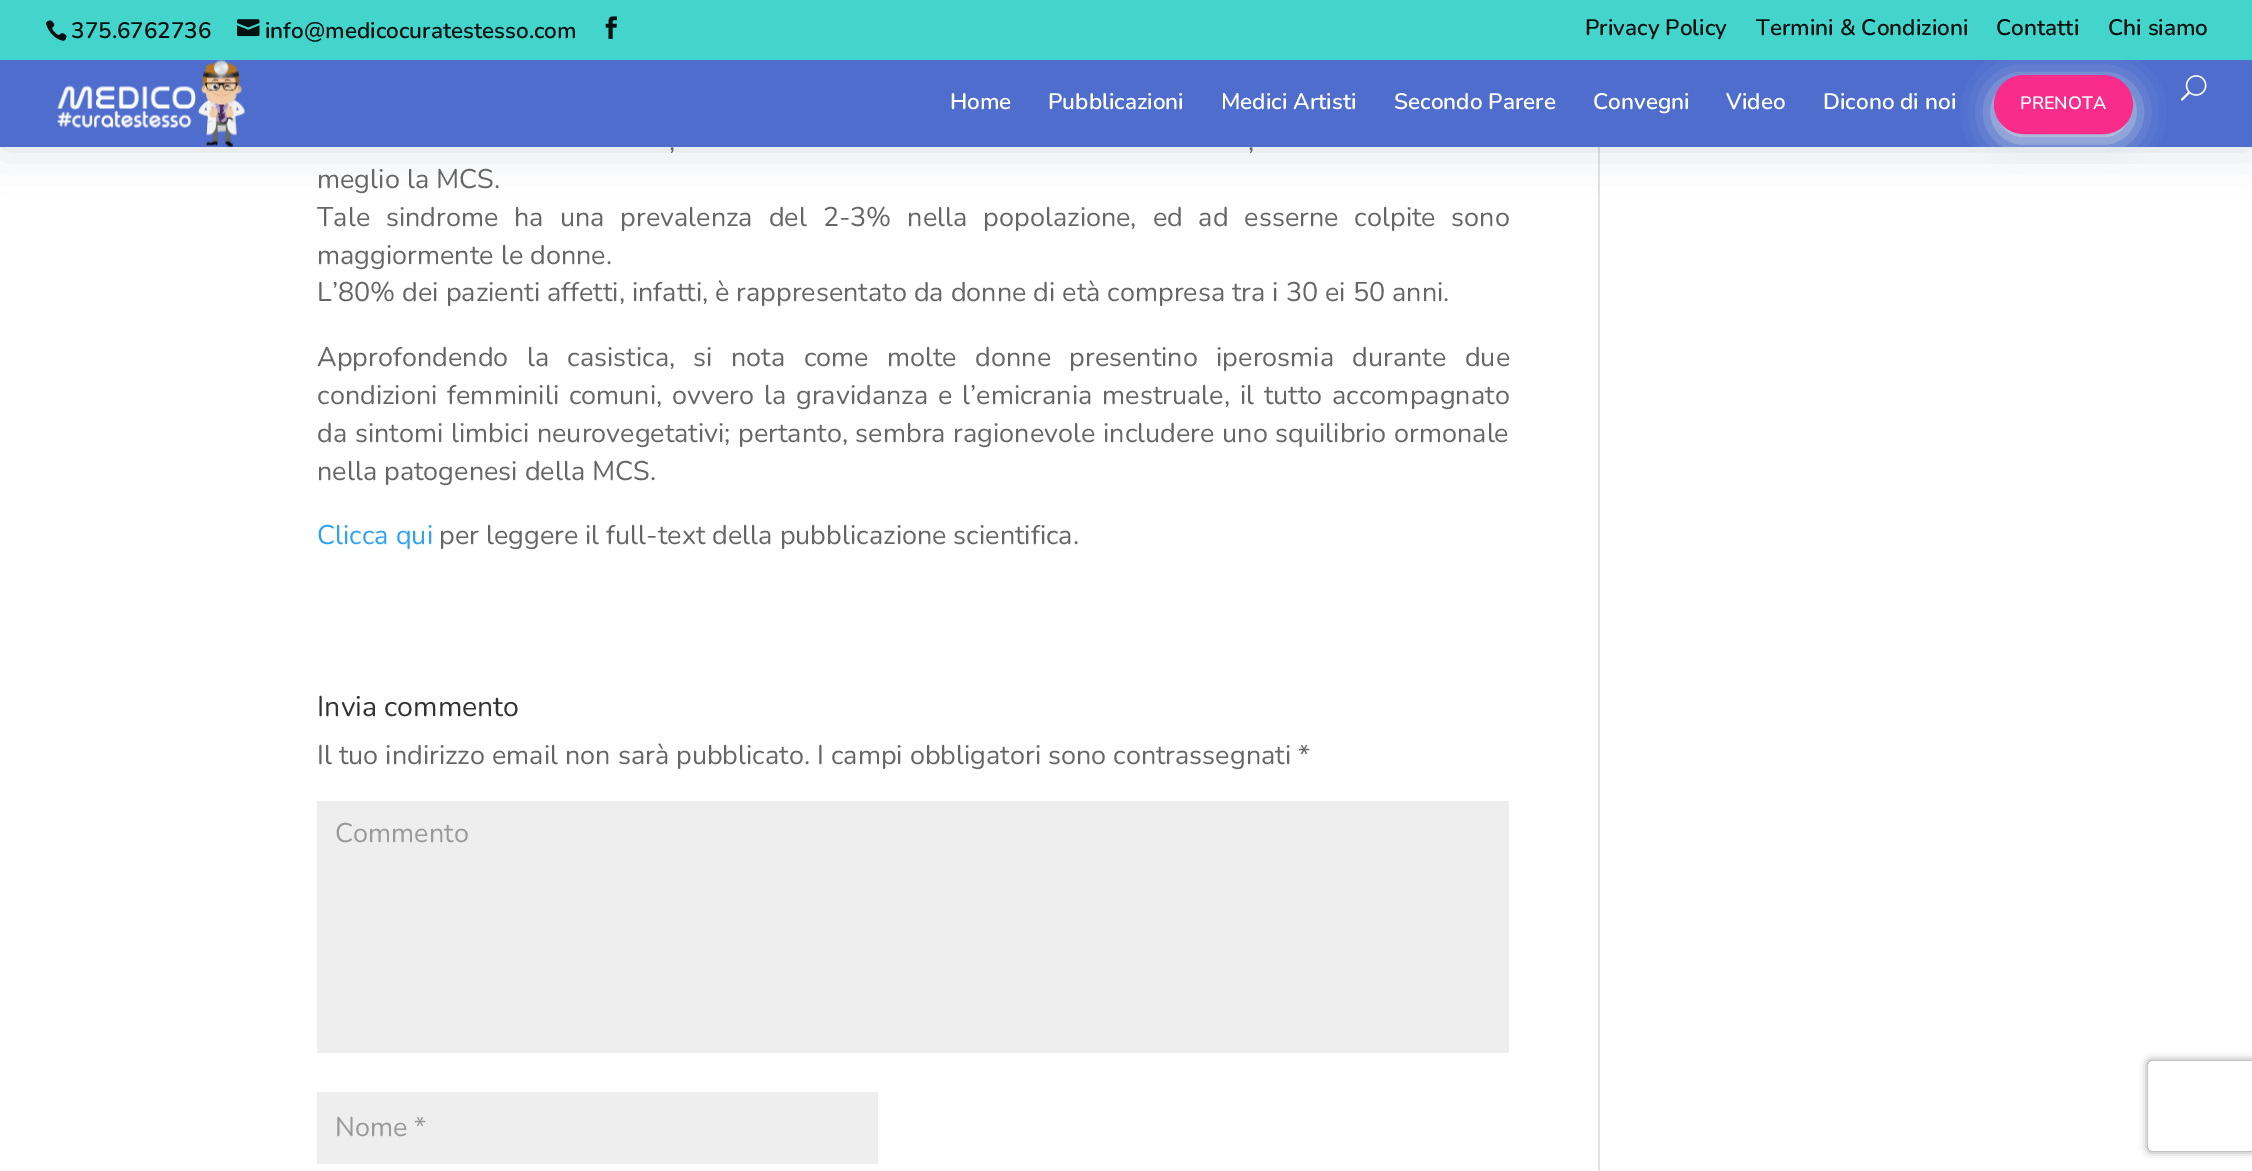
%!PS
<< /PageSize [2252 1171] /PageUsesTransparency true >> setpagedevice
/rgb { dup -16 bitshift 255 div exch dup -8 bitshift 255 and 255 div exch 255 and 255 div setrgbcolor } def
/font { [ exch dup neg 0 0 3 -1 roll 0 0 ] selectfont } def
/text { moveto show } def
/alpha { dup .setfillconstantalpha .setstrokeconstantalpha } def
/roundrect { 5 dict begin { /r /h /w /y /x } { exch def } forall
  x r add y moveto x w add y 2 copy h add r arct x w add y h add x 1 index r arct
  x y h add x y r arct x y 2 copy exch w add exch r arct closepath end } def
/shadow { 12 dict begin { /a /b /q /h /w /y /x } { exch def } forall gsave /was 0 def
  9 -2 -9 { dup b mul 4 div /e exch def 1 sub .425 mul 2.718 exch exp 1 add a .99 .min exch div /now exch def
    1 1 now sub 1 was sub div sub alpha /was now def
    w h .min e 2 mul add 0 gt { x e sub y e sub w e 2 mul add h e 2 mul add
      q e add b .6 mul add w h .min 2 div e add .min 0 .max roundrect fill } if } for grestore end } def
/picture { 5 dict begin { /h /w /y /x /name } { exch def } forall
  gsave x y translate w h scale
  w h 8 [w 0 0 h 0 0] name (r) file false 3 colorimage grestore end } def
0 .pushpdf14devicefilter
0 1171 translate 1 -1 scale
4 setmiterlimit
/s1 { /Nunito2-ExtraLight 22.5 font 16#051110 rgb } def
/s2 { /Nunito2-ExtraLight 22.5 font 16#FFFFFF rgb } def
/s3 { /Nunito2-ExtraLight 18 font 16#FFFFFF rgb } def
/s4 { /Nunito-ExtraLight 27 font 16#666666 rgb } def
/s5 { /Nunito-ExtraLight 27 font 16#2EA3F2 rgb } def
/s6 { /Nunito-ExtraLight 28.5 font 16#333333 rgb } def
/s7 { /Nunito-ExtraLight 27 font 16#999999 rgb } def
16#FFFFFF rgb
0 0 2252 1171 rectfill
16#E2E2E2 rgb
1598 147 2 1024 rectfill
16#073354 rgb
0 60 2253 87 0 22.5 0.17 shadow
16#4F6DCD rgb
0 60 2252 87 rectfill
16#D6DEE4 rgb
1994 83 139 58 29 15 1 shadow
16#43D5CB rgb
0 0 2252 60 rectfill
(pic1.raw) 45 20 22 21 picture
s1
(375.6762736) 71 38 text
(pic2.raw) 237 19 23 18 picture
(info@medicocuratestesso.com) 265 38 text
(pic3.raw) 605 16 12 23 picture
(Privacy Policy) 1585 35 text
(Termini & Condizioni) 1756 35 text
(Contatti) 1996 35 text
(Chi siamo) 2108 35 text
(pic4.raw) 57 60 188 88 picture
s2
(Home) 950 109 text
(Pubblicazioni) 1048 109 text
(Medici Artisti) 1221 109 text
(Secondo Parere) 1394 109 text
(Convegni) 1593 109 text
(Video) 1726 109 text
(Dicono di noi) 1823 109 text
16#F92C8B rgb
1995.5 76.5 136 56 28 roundrect gsave fill grestore
3 setlinewidth
stroke
s3
(PRENOTA) 2020 109 text
(pic5.raw) 2180 75 27 26 picture
/Nunito-ExtraLight 27 font
16#666666 rgb
669 150 moveto 2 0 32 (,) widthshow
1248 150 moveto 2 0 32 (,) widthshow
(meglio la MCS.) 317 188 text
317 226 moveto 8.9 0 32 (Tale sindrome ha una prevalenza del 2-3% nella popolazione, ed ad esserne colpite sono) widthshow
(maggiormente le donne.) 317 264 text
(L’80% dei pazienti affetti, infatti, è rappresentato da donne di età compresa tra i 30 ei 50 anni.) 317 301 text
317 366 moveto 11.4 0 32 (Approfondendo la casistica, si nota come molte donne presentino iperosmia durante due) widthshow
317 404 moveto 2.9 0 32 (condizioni femminili comuni, ovvero la gravidanza e l’emicrania mestruale, il tutto accompagnato) widthshow
317 442 moveto 0.75 0 32 (da sintomi limbici neurovegetativi; pertanto, sembra ragionevole includere uno squilibrio ormonale) widthshow
(nella patogenesi della MCS.) 317 480 text
s5
(Clicca qui) 317 544 text
s4
(per leggere il full-text della pubblicazione scientifica.) 439 544 text
s6
(Invia commento) 317 716 text
s4
(Il tuo indirizzo email non sarà pubblicato. I campi obbligatori sono contrassegnati *) 317 764 text
16#EEEEEE rgb
317 801 1192 252 rectfill
s7
(Commento) 335 842 text
16#EEEEEE rgb
317 1092 561 72 rectfill
s7
(Nome *) 335 1136 text
gsave
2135 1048 moveto 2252 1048 lineto 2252 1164 lineto 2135 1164 lineto closepath 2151 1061 moveto 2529 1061 lineto 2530.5 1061 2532 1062.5 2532 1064 curveto 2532 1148 lineto 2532 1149.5 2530.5 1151 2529 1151 curveto 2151 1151 lineto 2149.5 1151 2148 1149.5 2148 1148 curveto 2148 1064 lineto 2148 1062.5 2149.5 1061 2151 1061 curveto closepath eoclip newpath
16#808080 rgb
2148 1061 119 90 3 4 1 shadow
grestore
.poppdf14devicefilter showpage
